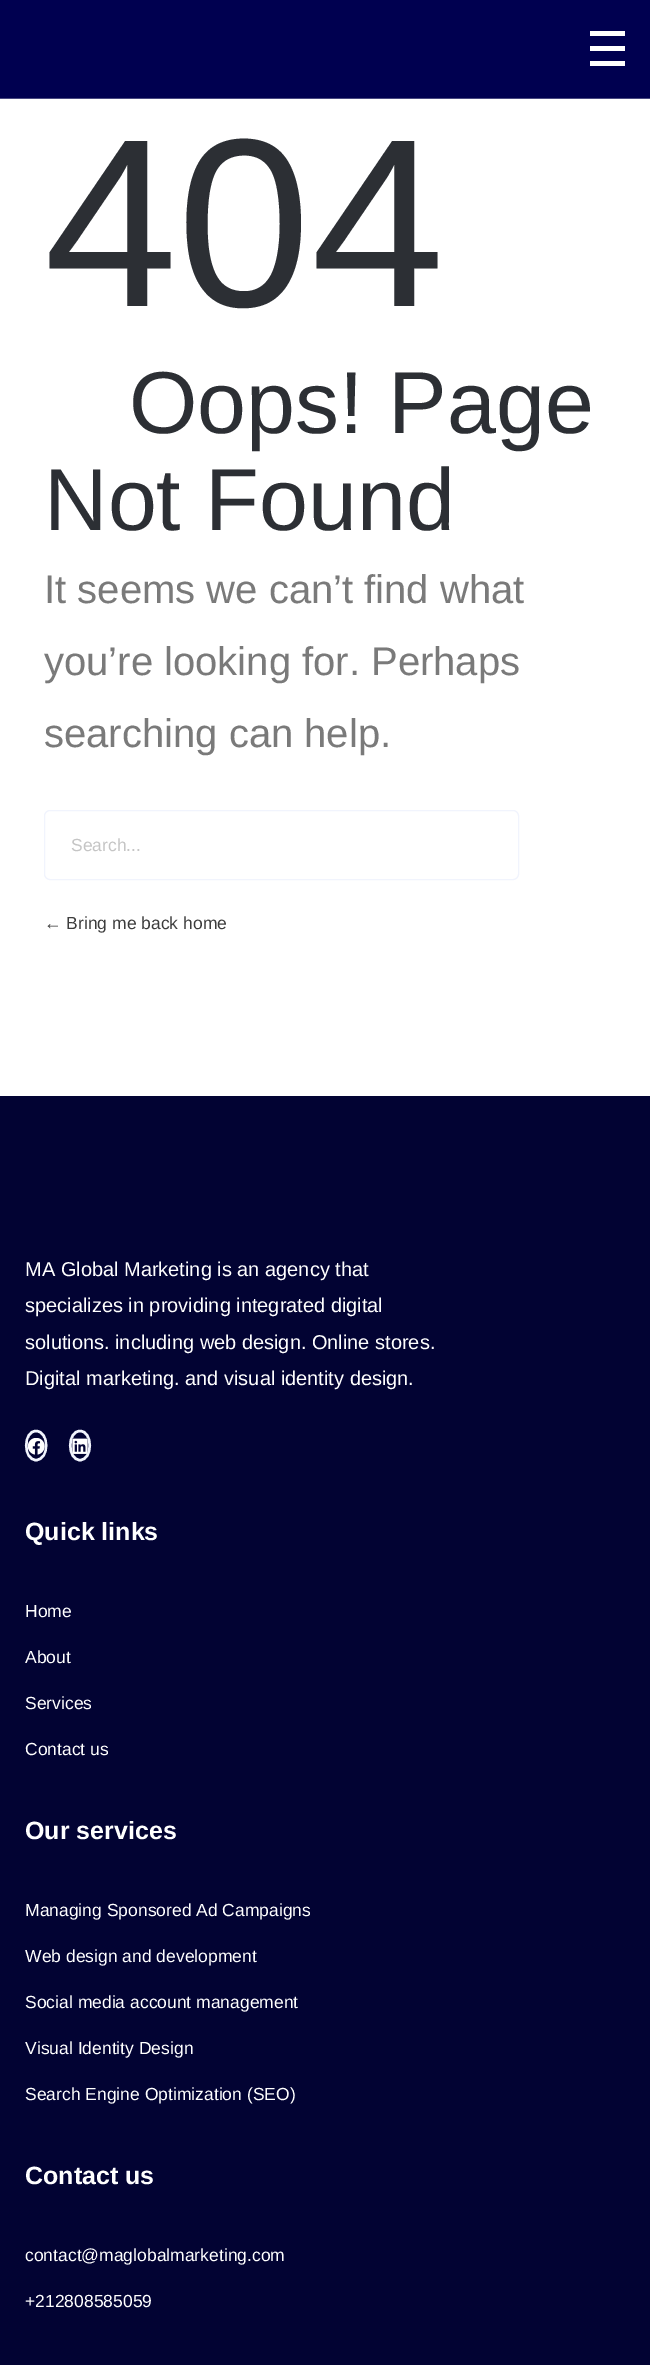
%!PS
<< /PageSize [650 2365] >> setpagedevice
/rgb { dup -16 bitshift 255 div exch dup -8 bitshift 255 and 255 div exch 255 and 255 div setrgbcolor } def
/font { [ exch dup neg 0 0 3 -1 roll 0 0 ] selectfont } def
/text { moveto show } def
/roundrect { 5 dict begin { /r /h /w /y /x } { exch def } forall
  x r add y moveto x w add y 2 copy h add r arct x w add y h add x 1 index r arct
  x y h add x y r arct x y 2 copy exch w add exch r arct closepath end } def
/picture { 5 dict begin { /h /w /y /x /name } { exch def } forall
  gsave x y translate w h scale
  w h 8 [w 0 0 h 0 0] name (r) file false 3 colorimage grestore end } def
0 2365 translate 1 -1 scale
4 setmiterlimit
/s1 { /LiberationSans-Regular 240 font 16#2C2F34 rgb } def
/s2 { /LiberationSans-Regular 88 font 16#2C2F34 rgb } def
/s3 { /LiberationSans-Regular 40 font 16#7A7A7A rgb } def
/s4 { /LiberationSans-Regular 17.5 font 16#C5C5C5 rgb } def
/s5 { /LiberationSans-Regular 17.5 font 16#3D3D3D rgb } def
/s6 { /LiberationSans-Regular 20 font 16#FFFFFF rgb } def
/s7 { /LiberationSans-Bold 25 font 16#FFFFFF rgb } def
/s8 { /LiberationSans-Regular 17.5 font 16#FFFFFF rgb } def
16#FFFFFF rgb
0 0 650 2365 rectfill
16#000050 rgb
0 0 650 98 rectfill
16#FFFFFF rgb
590 31 35 5 rectfill
590 46 35 5 rectfill
590 61 35 5 rectfill
16#494981 rgb
0 98 650 1 rectfill
s1
(404) 44 306 text
s2
(Oops! Page) 129 433 text
(Not Found) 44 530 text
s3
(It seems we can’t find what) 44 603 text
(you’re looking for. Perhaps) 44 675 text
(searching can help.) 44 747 text
16#F1F4FD rgb
44.5 810.5 474 69 5.5 roundrect stroke
s4
(Search...) 71 851 text
s5
(← Bring me back home) 44 929 text
16#020333 rgb
0 1096 650 1269 rectfill
s6
(MA Global Marketing is an agency that) 25 1276 text
(specializes in providing integrated digital) 25 1312 text
(solutions. including web design. Online stores.) 25 1349 text
(Digital marketing. and visual identity design.) 25 1385 text
16#F1F4FD rgb
2.5 setlinewidth
36 1431 moveto 49.5 1431 49.5 1460 36 1460 curveto 23 1460 23 1431 36 1431 curveto closepath stroke
(pic1.raw) 28 1438 17 17 picture
80 1431 moveto 93 1431 93 1460 80 1460 curveto 67 1460 67 1431 80 1431 curveto closepath stroke
(pic2.raw) 72 1438 16 16 picture
s7
(Quick links) 25 1540 text
s8
(Home) 25 1617 text
(About) 25 1663 text
(Services) 25 1709 text
(Contact us) 25 1755 text
s7
(Our services) 25 1839 text
s8
(Managing Sponsored Ad Campaigns) 25 1916 text
(Web design and development) 25 1962 text
(Social media account management) 25 2008 text
(Visual Identity Design) 25 2054 text
(Search Engine Optimization \(SEO\)) 25 2100 text
s7
(Contact us) 25 2184 text
s8
(contact@maglobalmarketing.com) 25 2261 text
(+212808585059) 25 2307 text
showpage
